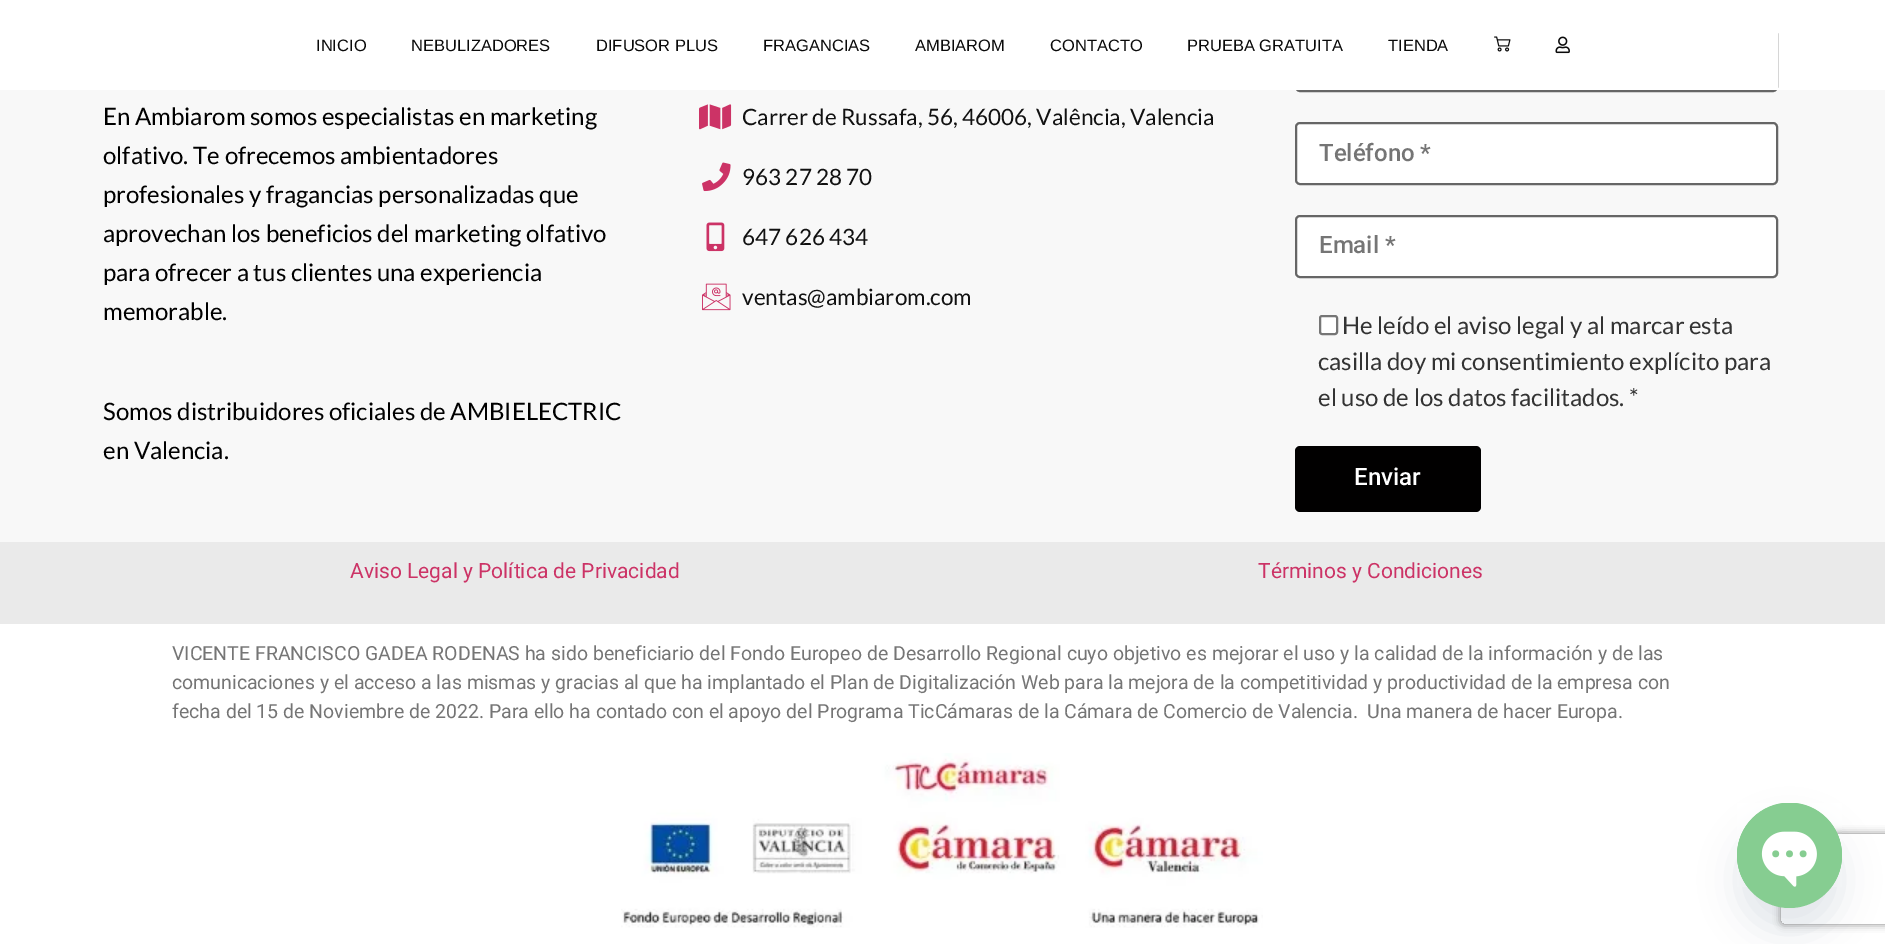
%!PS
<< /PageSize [1885 944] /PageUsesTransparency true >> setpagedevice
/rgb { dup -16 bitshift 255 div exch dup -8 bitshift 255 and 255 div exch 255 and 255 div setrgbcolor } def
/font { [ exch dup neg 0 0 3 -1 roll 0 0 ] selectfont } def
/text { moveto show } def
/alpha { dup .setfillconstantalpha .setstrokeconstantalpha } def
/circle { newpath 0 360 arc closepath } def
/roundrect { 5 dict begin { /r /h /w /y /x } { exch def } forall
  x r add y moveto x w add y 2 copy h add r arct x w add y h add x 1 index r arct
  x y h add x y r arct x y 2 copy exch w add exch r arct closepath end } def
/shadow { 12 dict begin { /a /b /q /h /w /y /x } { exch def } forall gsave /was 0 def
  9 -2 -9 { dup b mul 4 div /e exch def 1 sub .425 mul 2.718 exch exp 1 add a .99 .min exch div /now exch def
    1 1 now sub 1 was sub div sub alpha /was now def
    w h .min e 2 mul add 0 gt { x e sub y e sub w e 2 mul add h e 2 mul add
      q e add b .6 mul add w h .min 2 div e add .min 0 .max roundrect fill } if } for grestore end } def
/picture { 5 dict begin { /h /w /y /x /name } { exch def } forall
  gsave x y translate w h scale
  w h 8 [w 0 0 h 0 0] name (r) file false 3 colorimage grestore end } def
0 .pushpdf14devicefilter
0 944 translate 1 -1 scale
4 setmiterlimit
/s1 { /LiberationSans-Regular 16.5 font 16#0A0A0A rgb } def
/s2 { /Lato-Regular 24 font 16#000000 rgb } def
/s3 { /Lato-Regular 22.5 font 16#111111 rgb } def
/s4 { /Roboto-Medium 24 font 16#757575 rgb } def
/s5 { /Lato-Regular 24 font 16#333333 rgb } def
/s6 { /Roboto-Medium 24 font 16#FFFFFF rgb } def
/s7 { /Roboto-Regular 21 font 16#CC3366 rgb } def
/s8 { /Roboto-Regular 19.5 font 16#757575 rgb } def
16#FFFFFF rgb
0 0 1885 944 rectfill
16#F8F8F8 rgb
0 90 1885 452 rectfill
16#666666 rgb
2 setlinewidth
1296 30 481 61 4 roundrect stroke
16#FFFFFF rgb
1295 29 483 61 rectfill
s1
(INICIO) 316 51 text
(NEBULIZADORES) 411 51 text
(DIFUSOR PLUS) 596 51 text
(FRAGANCIAS) 763 51 text
(AMBIAROM) 915 51 text
(CONTACTO) 1050 51 text
(PRUEBA GRATUITA) 1187 51 text
(TIENDA) 1388 51 text
(pic1.raw) 1494 36 17 16 picture
(pic2.raw) 1555 36 15 18 picture
s2
(En Ambiarom somos especialistas en marketing) 103 125 text
(olfativo. Te ofrecemos ambientadores) 103 164 text
(profesionales y fragancias personalizadas que) 103 203 text
(aprovechan los beneficios del marketing olfativo) 103 242 text
(para ofrecer a tus clientes una experiencia) 103 281 text
(memorable.) 103 320 text
(Somos distribuidores oficiales de AMBIELECTRIC) 103 420 text
(en Valencia.) 103 459 text
(pic3.raw) 699 104 33 26 picture
s3
(Carrer de Russafa, 56, 46006, Valência, Valencia) 742 125 text
(pic4.raw) 702 162 29 30 picture
(963 27 28 70) 742 185 text
(pic5.raw) 706 222 19 30 picture
(647 626 434) 742 245 text
(pic6.raw) 702 283 29 28 picture
(ventas@ambiarom.com) 742 305 text
16#FFFFFF rgb
1296 123 481 61 4 roundrect gsave fill grestore
16#666666 rgb
stroke
s4
(Teléfono *) 1319 161 text
16#FFFFFF rgb
1296 216 481 61 4 roundrect gsave fill grestore
16#666666 rgb
stroke
s4
(Email *) 1319 253 text
16#FFFFFF rgb
1320 316 17 18 2 roundrect gsave fill grestore
16#767676 rgb
stroke
s5
(He leído el aviso legal y al marcar esta) 1342 334 text
(casilla doy mi consentimiento explícito para) 1318 370 text
(el uso de los datos facilitados. *) 1318 406 text
16#010000 rgb
1295 446 186 66 5 roundrect fill
s6
(Enviar) 1354 485 text
16#EAEAEA rgb
0 542 1885 82 rectfill
s7
(Aviso Legal y Política de Privacidad) 350 578 text
(Términos y Condiciones) 1258 578 text
s8
(VICENTE FRANCISCO GADEA RODENAS ha sido beneficiario del Fondo Europeo de Desarrollo Regional cuyo objetivo es mejorar el uso y la calidad de la información y de las) 172 660 text
(comunicaciones y el acceso a las mismas y gracias al que ha implantado el Plan de Digitalización Web para la mejora de la competitividad y productividad de la empresa con) 172 689 text
(fecha del 15 de Noviembre de 2022. Para ello ha contado con el apoyo del Programa TicCámaras de la Cámara de Comercio de Valencia.  Una manera de hacer Europa.) 172 718 text
(pic7.raw) 621 753 642 175 picture
16#49687E rgb
1737 827 105 105 52.5 18 0.16 shadow
gsave
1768 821 moveto 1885 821 lineto 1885 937 lineto 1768 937 lineto closepath 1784 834 moveto 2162 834 lineto 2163.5 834 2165 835.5 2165 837 curveto 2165 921 lineto 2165 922.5 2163.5 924 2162 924 curveto 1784 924 lineto 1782.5 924 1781 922.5 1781 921 curveto 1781 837 lineto 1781 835.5 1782.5 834 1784 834 curveto closepath eoclip newpath
16#808080 rgb
1781 834 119 90 3 4 1 shadow
grestore
16#86CD91 rgb
1789.5 855.5 52.5 circle fill
(pic8.raw) 1737 803 105 84 picture
.poppdf14devicefilter showpage
